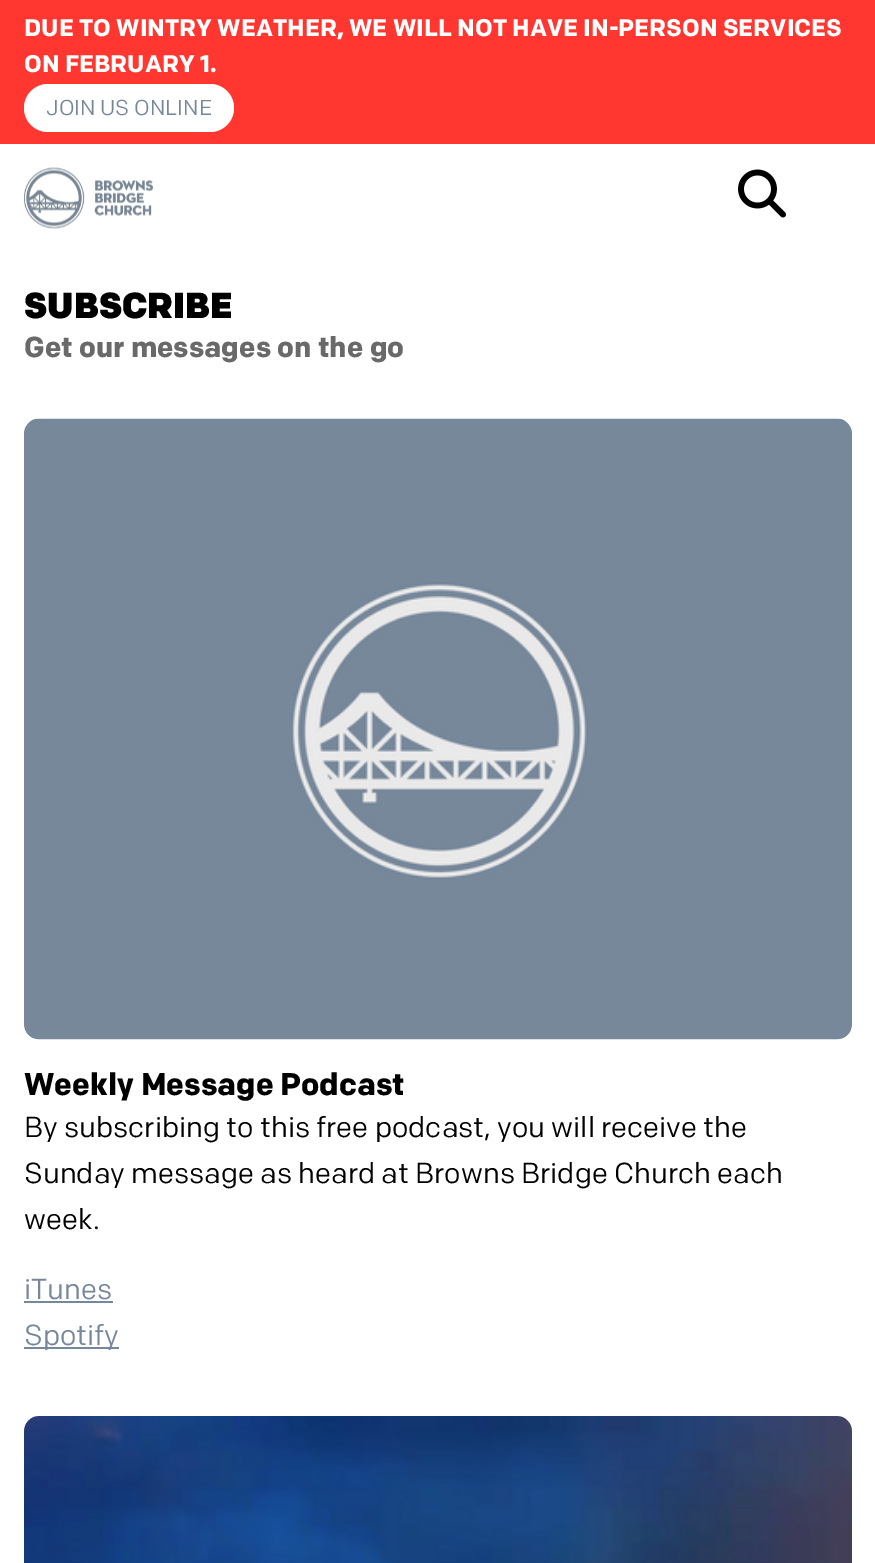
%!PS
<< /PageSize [875 1563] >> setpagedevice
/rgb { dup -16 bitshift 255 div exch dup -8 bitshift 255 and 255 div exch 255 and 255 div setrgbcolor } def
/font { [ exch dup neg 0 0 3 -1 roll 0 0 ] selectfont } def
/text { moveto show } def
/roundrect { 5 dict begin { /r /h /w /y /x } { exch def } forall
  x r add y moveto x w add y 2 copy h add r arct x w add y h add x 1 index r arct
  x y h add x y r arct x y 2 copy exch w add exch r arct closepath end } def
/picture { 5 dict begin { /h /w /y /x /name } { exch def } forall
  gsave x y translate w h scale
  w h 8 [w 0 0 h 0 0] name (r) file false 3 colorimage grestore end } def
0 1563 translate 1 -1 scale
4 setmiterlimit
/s1 { /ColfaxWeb-Bold 24 font 16#FFFFFF rgb } def
/s2 { /ColfaxWeb-Regular 21.5 font 16#76879A rgb } def
/s3 { /ColfaxWeb-Black 36 font 16#000000 rgb } def
/s4 { /ColfaxWeb-Bold 28.8 font 16#696969 rgb } def
/s5 { /ColfaxWeb-Bold 31.25 font 16#000000 rgb } def
/s6 { /ColfaxWeb-Regular 28.8 font 16#000000 rgb } def
/s7 { /ColfaxWeb-Regular 28.8 font 16#76879A rgb } def
16#FFFFFF rgb
0 0 875 1563 rectfill
16#FF3730 rgb
0 0 875 144 rectfill
s1
(DUE TO WINTRY WEATHER, WE WILL NOT HAVE IN-PERSON SERVICES) 24 36 text
(ON FEBRUARY 1.) 24 72 text
24 84 210 48 24 roundrect fill
s2
(JOIN US ONLINE) 46 115 text
(pic1.raw) 24 167 129 62 picture
(pic2.raw) 738 169 48 49 picture
s3
(SUBSCRIBE) 24 318 text
s4
(Get our messages on the go) 24 357 text
(pic3.raw) 24 418 828 622 picture
s5
(Weekly Message Podcast) 24 1095 text
s6
(By subscribing to this free podcast, you will receive the) 24 1137 text
(Sunday message as heard at Browns Bridge Church each) 24 1183 text
(week.) 24 1229 text
s7
(iTunes) 24 1299 text
24 1301 89 2 rectfill
24 1347 95 2 rectfill
(Spotify) 24 1345 text
(pic4.raw) 24 1416 828 147 picture
showpage
